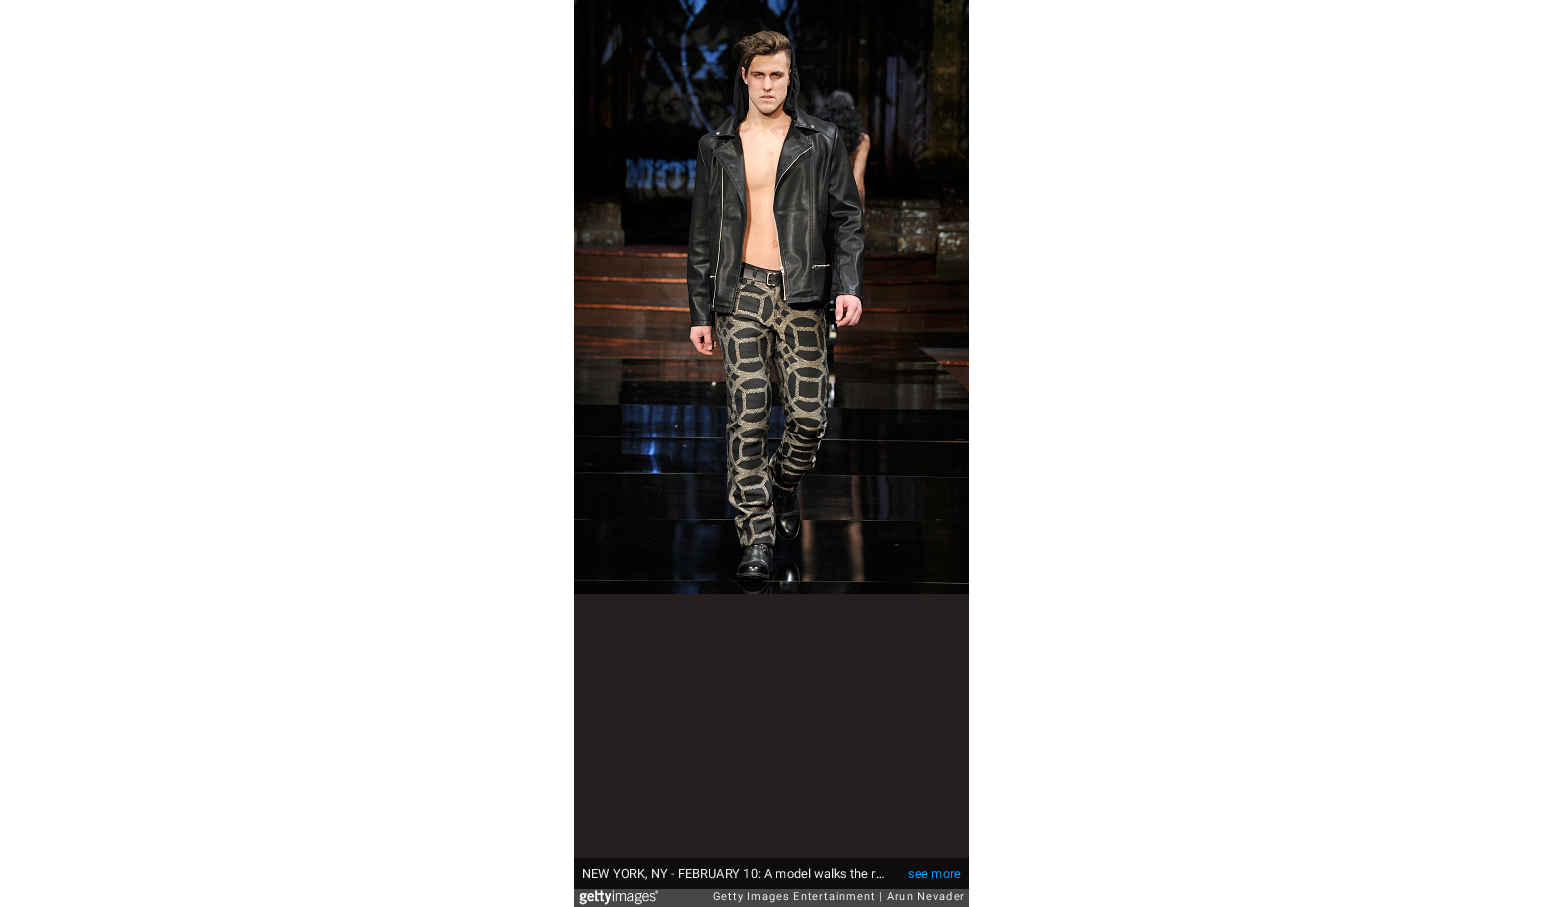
%!PS
<< /PageSize [1543 907] >> setpagedevice
/rgb { dup -16 bitshift 255 div exch dup -8 bitshift 255 and 255 div exch 255 and 255 div setrgbcolor } def
/font { [ exch dup neg 0 0 3 -1 roll 0 0 ] selectfont } def
/text { moveto show } def
/picture { 5 dict begin { /h /w /y /x /name } { exch def } forall
  gsave x y translate w h scale
  w h 8 [w 0 0 h 0 0] name (r) file false 3 colorimage grestore end } def
0 907 translate 1 -1 scale
4 setmiterlimit
/s1 { /Roboto-Regular 12.8 font 16#EEEEEE rgb } def
/s2 { /Roboto-Regular 12.8 font 16#0099FF rgb } def
16#FFFFFF rgb
0 0 1543 907 rectfill
16#251F20 rgb
574 594 395 264 rectfill
(pic1.raw) 574 0 395 594 picture
16#0F0C0D rgb
574 858 395 31 rectfill
s1
(NEW YORK, NY - FEBRUARY 10: A model walks the r…) 582 878 text
s2
(see more) 908 878 text
16#474545 rgb
574 889 395 18 rectfill
(pic2.raw) 579 890 80 15 picture
/Roboto-Regular 11 font
16#EEEEEE rgb
713 900 moveto 1 0 (Getty Images Entertainment | Arun Nevader) ashow
showpage
